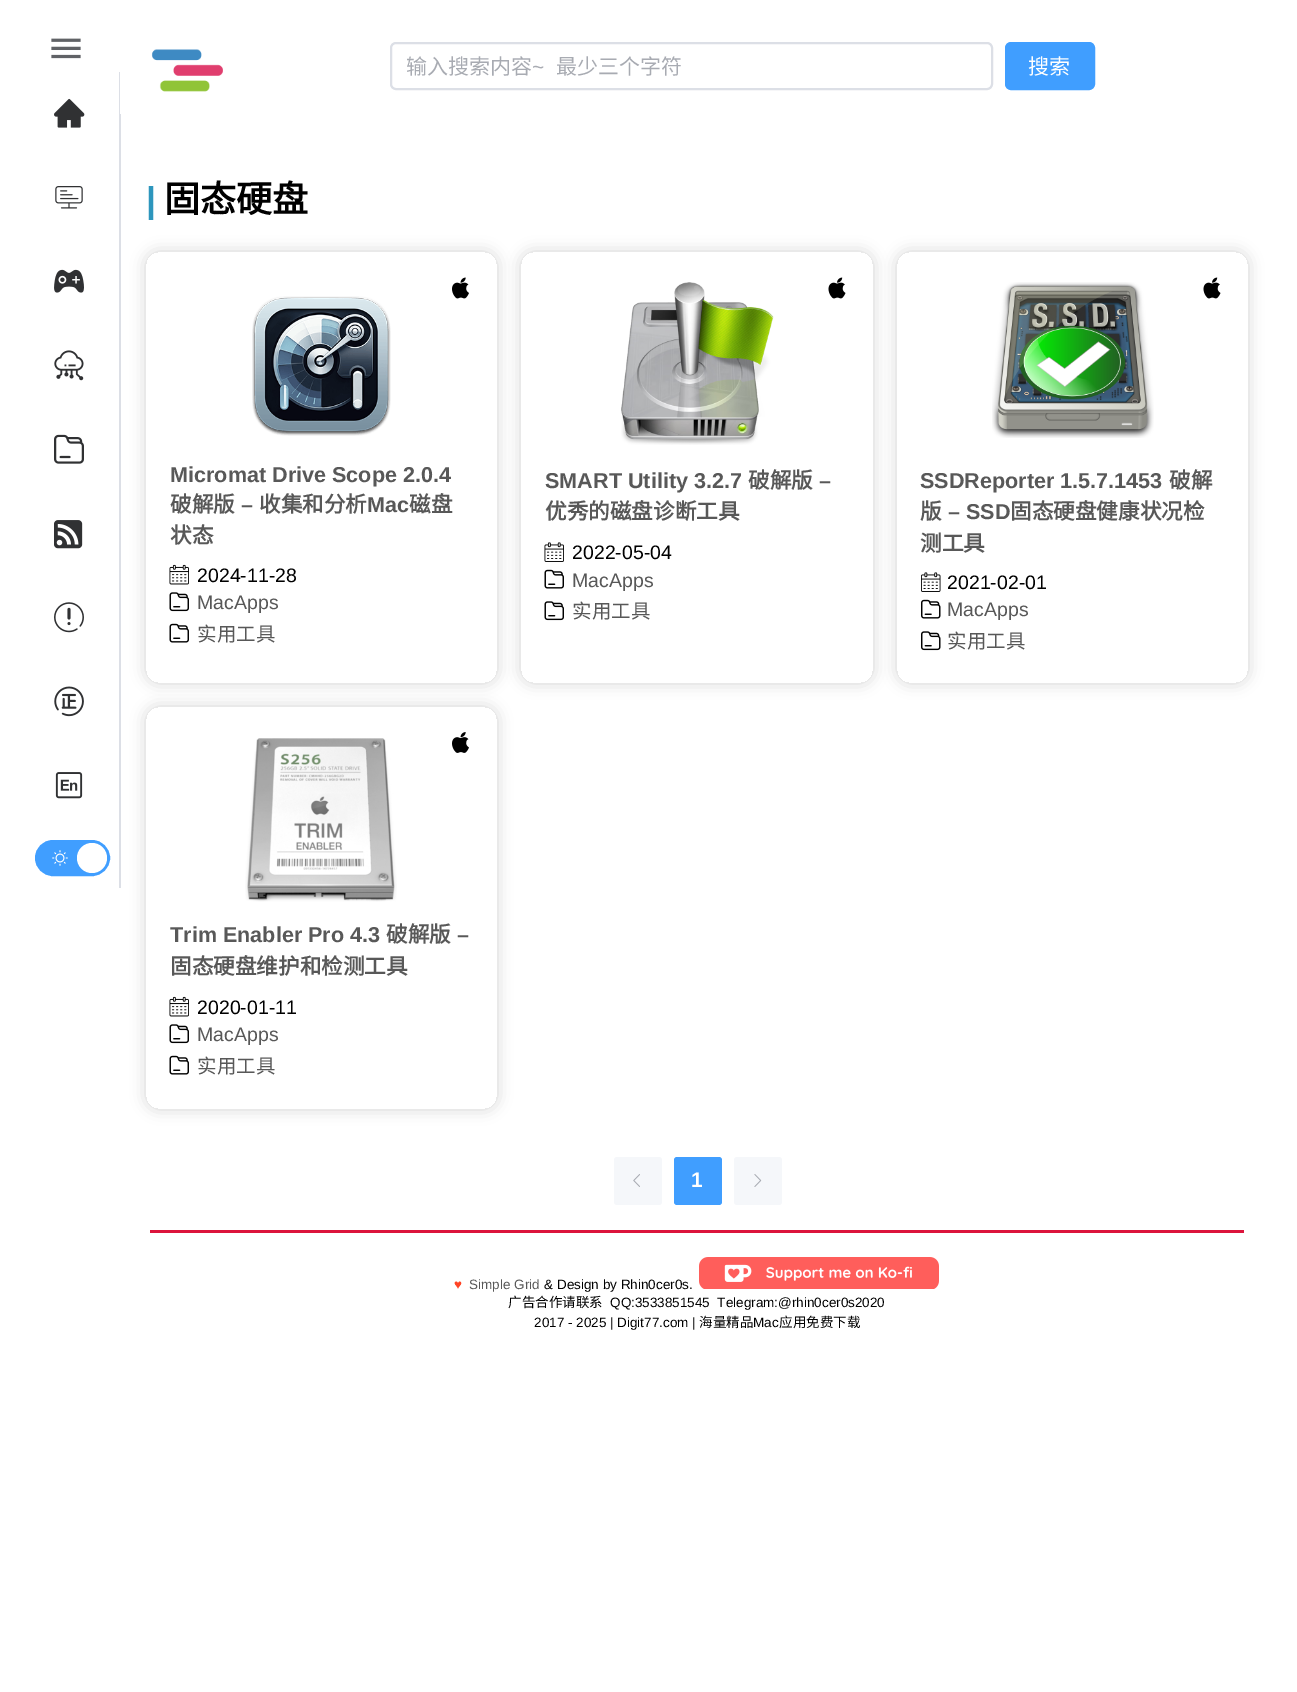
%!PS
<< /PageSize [1297 1692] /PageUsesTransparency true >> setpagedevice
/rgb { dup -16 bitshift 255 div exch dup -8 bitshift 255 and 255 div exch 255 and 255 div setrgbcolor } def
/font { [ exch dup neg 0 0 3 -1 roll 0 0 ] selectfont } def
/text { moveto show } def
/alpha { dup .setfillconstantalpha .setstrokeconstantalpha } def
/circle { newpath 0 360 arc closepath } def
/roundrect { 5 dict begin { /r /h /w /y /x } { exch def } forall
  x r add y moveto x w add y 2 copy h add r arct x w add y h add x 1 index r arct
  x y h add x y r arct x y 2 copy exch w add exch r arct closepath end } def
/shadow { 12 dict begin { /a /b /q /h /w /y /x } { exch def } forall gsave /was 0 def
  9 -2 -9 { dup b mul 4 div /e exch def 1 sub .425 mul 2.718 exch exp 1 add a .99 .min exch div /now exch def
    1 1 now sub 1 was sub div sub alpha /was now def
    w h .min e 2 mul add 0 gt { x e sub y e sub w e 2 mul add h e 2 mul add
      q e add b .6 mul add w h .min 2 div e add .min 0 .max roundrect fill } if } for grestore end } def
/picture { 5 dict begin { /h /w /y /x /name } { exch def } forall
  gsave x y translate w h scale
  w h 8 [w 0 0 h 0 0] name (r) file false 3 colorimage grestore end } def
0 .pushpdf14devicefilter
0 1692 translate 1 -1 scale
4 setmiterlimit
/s1 { /NotoSansCJKSC-Regular 21 font 16#A8ABB2 rgb } def
/s2 { /LiberationSans-Regular 21 font 16#A8ABB2 rgb } def
/s3 { /NotoSansCJKSC-Regular 21 font 16#FFFFFF rgb } def
/s4 { /LiberationSans-Bold 36 font 16#2D96BD rgb } def
/s5 { /NotoSansCJKSC-Bold 36 font 16#000000 rgb } def
/s6 { /LiberationSans-Bold 21.6 font 16#585858 rgb } def
/s7 { /NotoSansCJKSC-Bold 21.6 font 16#585858 rgb } def
/s8 { /LiberationSans-Regular 19.5 font 16#000000 rgb } def
/s9 { /LiberationSans-Regular 19.5 font 16#585858 rgb } def
/s10 { /NotoSansCJKSC-Regular 19.5 font 16#585858 rgb } def
/s11 { /LiberationSans-Bold 21 font 16#FFFFFF rgb } def
/s12 { /LiberationSans-Bold 13.5 font 16#FF4425 rgb } def
/s13 { /LiberationSans-Regular 13.5 font 16#585858 rgb } def
/s14 { /LiberationSans-Regular 13.5 font 16#000000 rgb } def
/s15 { /NotoSansCJKSC-Regular 13.5 font 16#000000 rgb } def
16#FFFFFF rgb
0 0 1297 1692 rectfill
(pic1.raw) 51 38 30 21 picture
16#DCDFE6 rgb
119 72 2 816 rectfill
(pic2.raw) 54 98 31 30 picture
(pic3.raw) 55 186 28 23 picture
(pic4.raw) 54 269 30 24 picture
(pic5.raw) 54 350 30 31 picture
(pic6.raw) 54 434 30 30 picture
(pic7.raw) 54 520 29 29 picture
(pic8.raw) 54 602 30 31 picture
(pic9.raw) 54 686 30 31 picture
(pic10.raw) 55 772 28 27 picture
16#409EFF rgb
36 841 73 34 17 roundrect gsave fill grestore
2 setlinewidth
stroke
(pic11.raw) 52 850 16 16 picture
16#FFFFFF rgb
92 858 15 circle fill
120 72 1 42 rectfill
(pic12.raw) 151 49 72 43 picture
16#DCDFE6 rgb
391 43 601 46 5 roundrect stroke
gsave
407 50 570 30 rectclip
s1
(输入搜索内容) 406 74 text
grestore
s2
(~) 532 74 text
s1
(最少三个字符) 556 74 text
16#409EFF rgb
1006 43 88 46 5 roundrect gsave fill grestore
stroke
s3
(搜索) 1028 74 text
s4
(|) 146 212 text
s5
(固态硬盘) 164 212 text
gsave
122 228 moveto 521 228 lineto 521 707 lineto 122 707 lineto closepath 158 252 moveto 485 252 lineto 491.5 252 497 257.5 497 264 curveto 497 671 lineto 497 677.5 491.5 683 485 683 curveto 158 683 lineto 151.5 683 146 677.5 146 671 curveto 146 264 lineto 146 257.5 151.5 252 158 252 curveto closepath eoclip newpath
16#D2D2D2 rgb
146 252 351 431 12 7.5 1 shadow
grestore
(pic13.raw) 452 277 17 22 picture
(pic14.raw) 252 296 139 140 picture
s6
(Micromat Drive Scope 2.0.4) 170 482 text
s7
(破解版) 170 512 text
s6
(–) 241 512 text
s7
(收集和分析) 259 512 text
s6
(Mac) 367 512 text
s7
(磁盘) 409 512 text
(状态) 170 543 text
(pic15.raw) 169 564 20 21 picture
s8
(2024-11-28) 197 582 text
(pic16.raw) 169 592 20 20 picture
s9
(MacApps) 197 609 text
(pic17.raw) 169 623 20 20 picture
s10
(实用工具) 197 641 text
gsave
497 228 moveto 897 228 lineto 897 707 lineto 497 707 lineto closepath 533 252 moveto 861 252 lineto 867.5 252 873 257.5 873 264 curveto 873 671 lineto 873 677.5 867.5 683 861 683 curveto 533 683 lineto 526.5 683 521 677.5 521 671 curveto 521 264 lineto 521 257.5 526.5 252 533 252 curveto closepath eoclip newpath
16#D2D2D2 rgb
521 252 352 431 12 7.5 1 shadow
grestore
(pic18.raw) 621 282 153 163 picture
(pic19.raw) 828 277 18 22 picture
s6
(SMART Utility 3.2.7) 545 488 text
s7
(破解版) 748 488 text
s6
(–) 819 488 text
s7
(优秀的磁盘诊断工具) 545 519 text
(pic20.raw) 544 542 20 20 picture
s8
(2022-05-04) 572 559 text
(pic17.raw) 544 569 20 20 picture
s9
(MacApps) 572 587 text
(pic16.raw) 544 601 20 20 picture
s10
(实用工具) 572 618 text
gsave
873 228 moveto 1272 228 lineto 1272 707 lineto 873 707 lineto closepath 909 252 moveto 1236 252 lineto 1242.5 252 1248 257.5 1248 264 curveto 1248 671 lineto 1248 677.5 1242.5 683 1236 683 curveto 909 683 lineto 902.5 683 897 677.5 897 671 curveto 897 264 lineto 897 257.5 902.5 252 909 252 curveto closepath eoclip newpath
16#D2D2D2 rgb
897 252 351 431 12 7.5 1 shadow
grestore
(pic21.raw) 992 282 162 156 picture
(pic19.raw) 1203 277 18 22 picture
s6
(SSDReporter 1.5.7.1453) 920 488 text
s7
(破解) 1169 488 text
(版) 920 519 text
s6
(– SSD) 948 519 text
s7
(固态硬盘健康状况检) 1010 519 text
(测工具) 920 551 text
(pic22.raw) 921 572 20 20 picture
s8
(2021-02-01) 947 589 text
(pic23.raw) 921 599 20 20 picture
s9
(MacApps) 947 616 text
(pic24.raw) 921 631 20 20 picture
s10
(实用工具) 947 648 text
gsave
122 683 moveto 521 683 lineto 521 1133 lineto 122 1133 lineto closepath 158 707 moveto 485 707 lineto 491.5 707 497 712.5 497 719 curveto 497 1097 lineto 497 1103.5 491.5 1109 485 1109 curveto 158 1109 lineto 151.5 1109 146 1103.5 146 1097 curveto 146 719 lineto 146 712.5 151.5 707 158 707 curveto closepath eoclip newpath
16#D2D2D2 rgb
146 707 351 402 12 7.5 1 shadow
grestore
(pic25.raw) 245 738 152 164 picture
(pic26.raw) 452 732 17 21 picture
s6
(Trim Enabler Pro 4.3) 170 942 text
s7
(破解版) 386 942 text
s6
(–) 457 942 text
s7
(固态硬盘维护和检测工具) 170 974 text
(pic15.raw) 169 996 20 21 picture
s8
(2020-01-11) 197 1014 text
(pic16.raw) 169 1024 20 20 picture
s9
(MacApps) 197 1041 text
(pic17.raw) 169 1055 20 20 picture
s10
(实用工具) 197 1073 text
16#F5F7FA rgb
614 1157 48 48 3 roundrect fill
(pic27.raw) 633 1174 7 13 picture
16#409EFF rgb
674 1157 48 48 3 roundrect fill
s11
(1) 691 1187 text
16#F5F7FA rgb
734 1157 48 48 3 roundrect fill
(pic28.raw) 754 1174 8 13 picture
16#DC143C rgb
150 1230 1094 3 rectfill
s12
(♥) 454 1289 text
s13
(Simple Grid) 469 1289 text
s14
(& Design by Rhin0cer0s.) 544 1289 text
(pic29.raw) 699 1257 240 32 picture
s15
(广告合作请联系) 508 1307 text
s14
(QQ:3533851545  Telegram:@rhin0cer0s2020) 610 1307 text
(2017 - 2025 | Digit77.com |) 534 1327 text
s15
(海量精品) 699 1327 text
s14
(Mac) 753 1327 text
s15
(应用免费下载) 779 1327 text
.poppdf14devicefilter showpage
